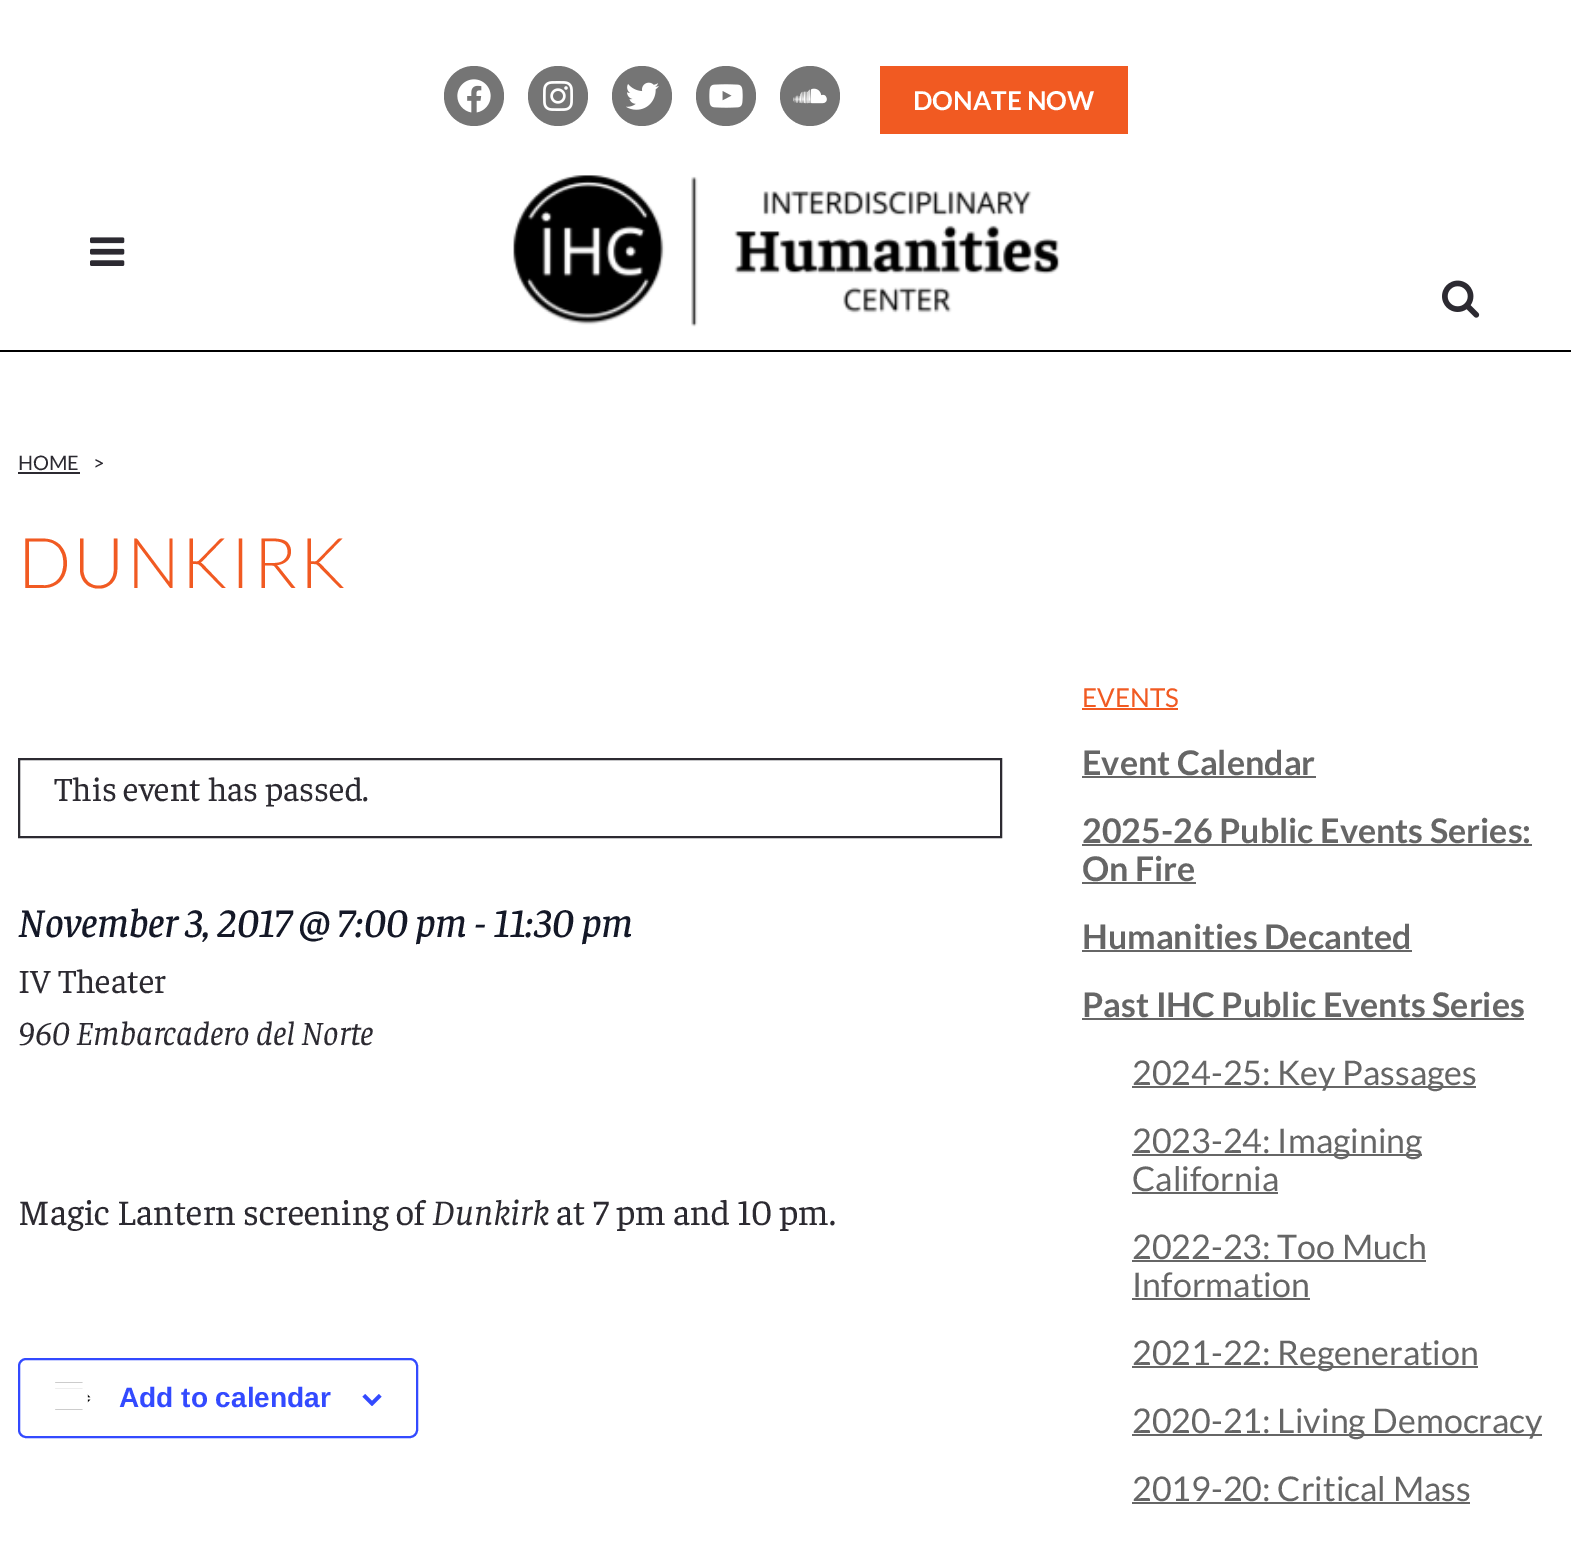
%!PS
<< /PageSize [1571 1541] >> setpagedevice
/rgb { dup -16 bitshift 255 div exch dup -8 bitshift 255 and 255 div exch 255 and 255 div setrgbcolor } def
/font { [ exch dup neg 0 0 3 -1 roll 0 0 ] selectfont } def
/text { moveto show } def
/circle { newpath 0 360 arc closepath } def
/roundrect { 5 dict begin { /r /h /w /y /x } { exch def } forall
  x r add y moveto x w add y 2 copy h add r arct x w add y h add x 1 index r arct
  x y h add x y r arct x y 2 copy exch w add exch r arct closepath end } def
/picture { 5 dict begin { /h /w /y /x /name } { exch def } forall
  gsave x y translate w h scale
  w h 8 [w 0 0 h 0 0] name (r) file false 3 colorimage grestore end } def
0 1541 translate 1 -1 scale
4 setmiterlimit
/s1 { /Lato-Bold 26 font 16#FFFFFF rgb } def
/s2 { /Lato-Regular 20 font 16#2C2A31 rgb } def
/s3 { /Faustina-Regular 34 font 16#2C2A31 rgb } def
/s4 { /Faustina-MediumItalic 40.75 font 16#141827 rgb } def
/s5 { /Faustina-Italic 34 font 16#2C2A31 rgb } def
/s6 { /Faustina-Regular 36 font 16#2C2A31 rgb } def
/s7 { /Faustina-Italic 36 font 16#2C2A31 rgb } def
/s8 { /LiberationSans-Bold 28 font 16#334AFF rgb } def
/s9 { /Lato-Regular 26 font 16#F15A22 rgb } def
/s10 { /Lato-Bold 34 font 16#666666 rgb } def
/s11 { /Lato-Regular 34 font 16#666666 rgb } def
16#FFFFFF rgb
0 0 1571 1541 rectfill
16#757575 rgb
474 96 30 circle fill
(pic1.raw) 457 79 34 34 picture
558 96 30 circle fill
(pic2.raw) 543 81 30 30 picture
642 96 30 circle fill
(pic3.raw) 626 82 33 28 picture
726 96 30 circle fill
(pic4.raw) 709 84 34 24 picture
810 96 30 circle fill
(pic5.raw) 793 88 34 16 picture
16#F15A22 rgb
880 66 248 68 rectfill
s1
(DONATE NOW) 913 110 text
16#000000 rgb
0 350 1571 2 rectfill
(pic6.raw) 90 237 35 29 picture
(pic7.raw) 513 175 547 152 picture
(pic8.raw) 1442 280 38 38 picture
s2
(HOME) 18 470 text
18 472 62 2 rectfill
(>) 93 470 text
/Lato-Light 70 font
16#F15A22 rgb
18 588 moveto 2 0 (DUNKIRK) ashow
16#2C2A31 rgb
2 setlinewidth
19 759 982 78 rectstroke
s3
(This event has passed.) 54 801 text
s4
(November 3, 2017 @ 7:00 pm - 11:30 pm) 18 937 text
s3
(IV Theater) 18 993 text
s5
(960 Embarcadero del Norte) 18 1045 text
s6
(Magic Lantern screening of) 18 1225 text
s7
(Dunkirk) 432 1225 text
s6
(at 7 pm and 10 pm.) 556 1225 text
16#334AFF rgb
19 1359 398 78 7 roundrect stroke
(pic9.raw) 55 1382 36 28 picture
s8
(Add to calendar) 119 1407 text
(pic10.raw) 362 1394 20 12 picture
s9
(EVENTS) 1082 707 text
1082 708 96 2 rectfill
s10
(Event Calendar) 1082 775 text
1082 776 234 2 rectfill
(2025-26 Public Events Series:) 1082 843 text
1082 844 450 2 rectfill
(On Fire) 1082 881 text
1082 882 114 2 rectfill
(Humanities Decanted) 1082 949 text
1082 950 330 2 rectfill
(Past IHC Public Events Series) 1082 1017 text
1082 1018 442 2 rectfill
1132 1086 344 2 rectfill
s11
(2024-25: Key Passages) 1132 1085 text
1132 1154 290 2 rectfill
(2023-24: Imagining) 1132 1153 text
(California) 1132 1191 text
1132 1192 146 2 rectfill
(2022-23: Too Much) 1132 1259 text
1132 1260 294 2 rectfill
(Information) 1132 1297 text
1132 1298 178 2 rectfill
1132 1366 346 2 rectfill
(2021-22: Regeneration) 1132 1365 text
1132 1434 410 2 rectfill
(2020-21: Living Democracy) 1132 1433 text
(2019-20: Critical Mass) 1132 1501 text
1132 1502 338 2 rectfill
showpage
